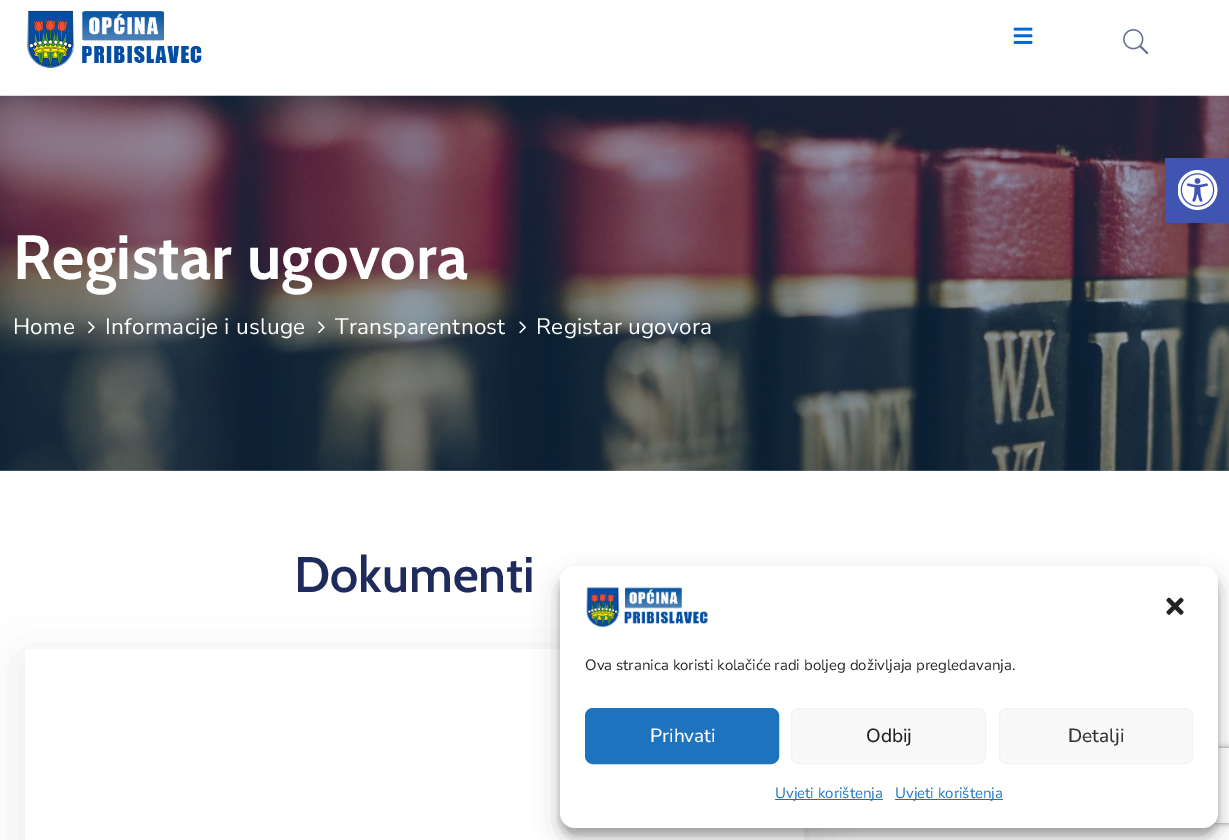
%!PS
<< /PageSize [1229 840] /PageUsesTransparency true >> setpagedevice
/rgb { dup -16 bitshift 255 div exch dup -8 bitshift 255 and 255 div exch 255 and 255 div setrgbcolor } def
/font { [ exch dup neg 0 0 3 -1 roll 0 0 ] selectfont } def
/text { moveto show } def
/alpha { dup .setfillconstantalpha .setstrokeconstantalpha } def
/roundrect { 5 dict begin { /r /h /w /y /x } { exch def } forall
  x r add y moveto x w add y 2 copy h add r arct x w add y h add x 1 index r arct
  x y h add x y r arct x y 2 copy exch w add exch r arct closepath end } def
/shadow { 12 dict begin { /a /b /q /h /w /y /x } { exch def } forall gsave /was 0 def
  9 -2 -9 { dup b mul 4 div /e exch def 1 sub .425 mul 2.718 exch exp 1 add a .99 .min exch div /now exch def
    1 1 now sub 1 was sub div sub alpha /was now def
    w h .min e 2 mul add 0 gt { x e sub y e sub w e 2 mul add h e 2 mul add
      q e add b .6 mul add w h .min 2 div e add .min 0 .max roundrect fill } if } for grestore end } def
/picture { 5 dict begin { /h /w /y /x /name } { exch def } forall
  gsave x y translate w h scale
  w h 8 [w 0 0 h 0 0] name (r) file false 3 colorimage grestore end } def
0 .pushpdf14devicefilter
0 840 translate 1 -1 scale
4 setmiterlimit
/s1 { /Cabin-SemiBold 50 font 16#202B5D rgb } def
/s2 { /NunitoSans-Regular 15 font 16#222222 rgb } def
/s3 { /NunitoSans-Medium 19 font 16#FFFFFF rgb } def
/s4 { /NunitoSans-Medium 19 font 16#222222 rgb } def
/s5 { /NunitoSans-Medium 19 font 16#333333 rgb } def
/s6 { /NunitoSans-Regular 15 font 16#1E73BE rgb } def
16#FFFFFF rgb
0 0 1229 840 rectfill
(pic5.raw) 0 95 1229 376 picture
16#000000 rgb
1165 158 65 65 0 6 0.1 shadow
16#4054B2 rgb
1165 158 64 65 rectfill
(pic1.raw) 1178 170 40 40 picture
(pic2.raw) 27 10 175 59 picture
(pic3.raw) 1013 27 20 17 picture
(pic4.raw) 1123 29 26 26 picture
/Cabin-Bold 62.5 font
16#FFFFFF rgb
13 279 moveto 0.25 0 (Registar ugovora) ashow
/NunitoSans-Regular 22.5 font
13 334 moveto 0.25 0 (Home) ashow
(pic6.raw) 88 321 7 13 picture
105 334 moveto 0.25 0 (Informacije i usluge) ashow
(pic7.raw) 318 321 7 13 picture
335 334 moveto 0.25 0 (Transparentnost) ashow
(pic8.raw) 519 321 7 13 picture
536 334 moveto 0.25 0 (Registar ugovora) ashow
s1
(Dokumenti) 294 592 text
16#06163A rgb
25 661 779 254 0 25 0.1 shadow
16#FFFFFF rgb
25 649 779 191 rectfill
16#000000 rgb
560 574 658 261 15 4 0.23 shadow
560 579 658 261 15 12.5 0.19 shadow
gsave
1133 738 moveto 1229 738 lineto 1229 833 lineto 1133 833 lineto closepath 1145.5 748 moveto 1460.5 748 lineto 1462 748 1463 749 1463 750.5 curveto 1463 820.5 lineto 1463 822 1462 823 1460.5 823 curveto 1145.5 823 lineto 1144 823 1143 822 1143 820.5 curveto 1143 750.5 lineto 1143 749 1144 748 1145.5 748 curveto closepath eoclip newpath
16#808080 rgb
1143 748 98 75 2.5 3 1 shadow
grestore
16#FFFFFF rgb
560 566 658 262 15 roundrect fill
(pic9.raw) 586 587 122 41 picture
(pic10.raw) 1166 597 18 18 picture
s2
(Ova stranica koristi kolačiće radi boljeg doživljaja pregledavanja.) 585 670 text
16#1E73BE rgb
585.5 708.5 193 55 7.5 roundrect gsave fill grestore
stroke
s3
(Prihvati) 650 742 text
16#F9F9F9 rgb
791.5 708.5 194 55 7.5 roundrect gsave fill grestore
16#F2F2F2 rgb
stroke
s4
(Odbij) 866 742 text
16#F9F9F9 rgb
999.5 708.5 193 55 7.5 roundrect gsave fill grestore
16#F2F2F2 rgb
stroke
s5
(Detalji) 1068 742 text
16#1E73BE rgb
775 799 108 1 rectfill
s6
(Uvjeti korištenja) 775 798 text
895 799 108 1 rectfill
(Uvjeti korištenja) 895 798 text
.poppdf14devicefilter showpage
